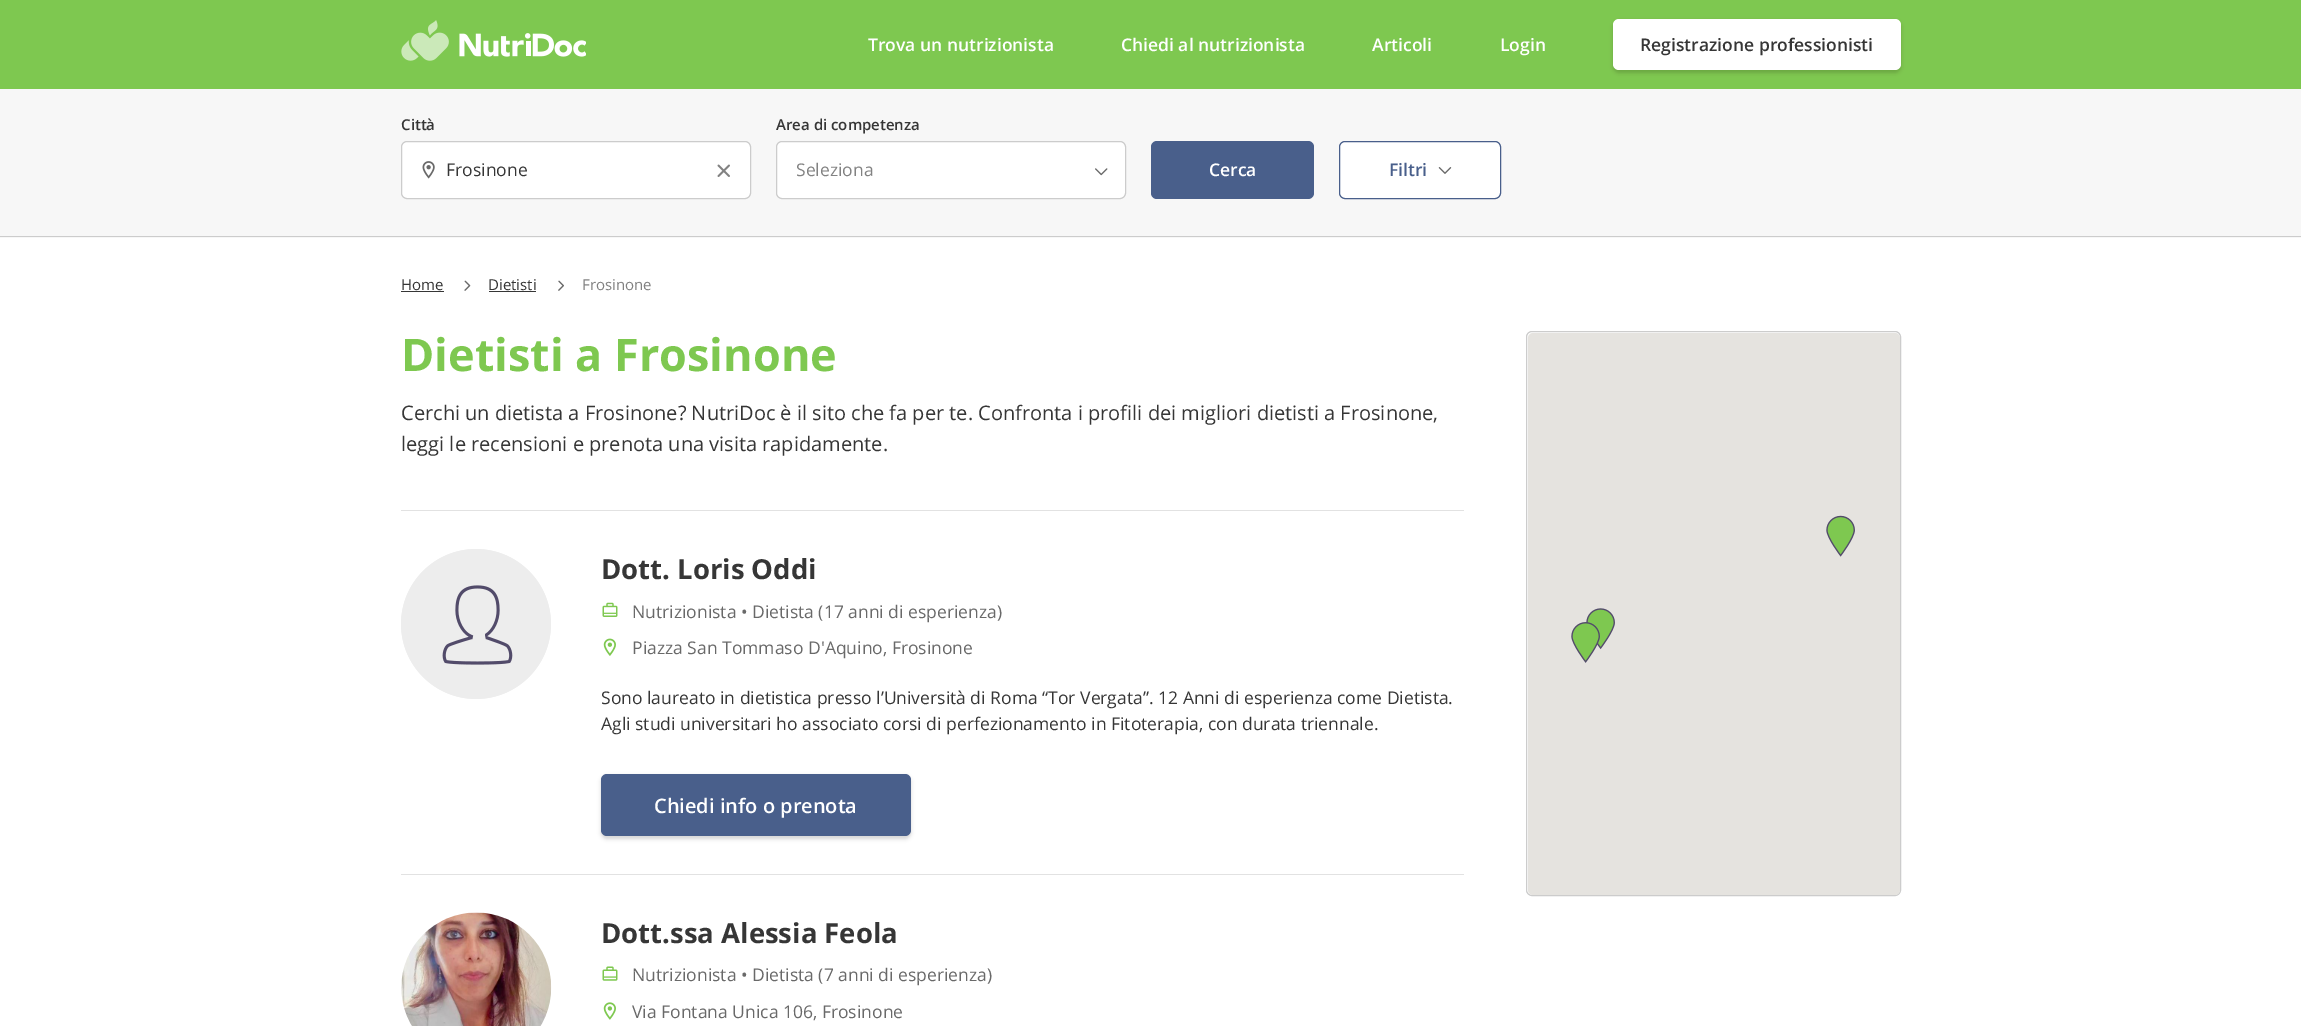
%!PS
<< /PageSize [2301 1026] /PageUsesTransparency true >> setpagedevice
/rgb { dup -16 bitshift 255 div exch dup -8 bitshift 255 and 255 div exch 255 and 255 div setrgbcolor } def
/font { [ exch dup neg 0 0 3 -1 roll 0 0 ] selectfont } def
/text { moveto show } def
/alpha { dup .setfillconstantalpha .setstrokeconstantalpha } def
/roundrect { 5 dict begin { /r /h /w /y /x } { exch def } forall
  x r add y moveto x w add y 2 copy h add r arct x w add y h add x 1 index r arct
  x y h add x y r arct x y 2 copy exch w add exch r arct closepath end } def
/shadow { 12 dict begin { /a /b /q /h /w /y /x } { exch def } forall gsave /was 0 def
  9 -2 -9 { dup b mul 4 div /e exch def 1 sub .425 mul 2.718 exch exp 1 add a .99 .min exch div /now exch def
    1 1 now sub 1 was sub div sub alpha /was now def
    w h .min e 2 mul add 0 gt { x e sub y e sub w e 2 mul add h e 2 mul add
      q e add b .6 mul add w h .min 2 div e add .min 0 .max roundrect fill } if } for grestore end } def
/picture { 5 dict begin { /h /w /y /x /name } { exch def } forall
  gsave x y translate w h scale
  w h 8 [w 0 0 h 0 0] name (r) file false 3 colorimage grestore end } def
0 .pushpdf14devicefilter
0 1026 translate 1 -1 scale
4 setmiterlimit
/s1 { /OpenSans-SemiBold 17.5 font 16#FFFFFF rgb } def
/s2 { /OpenSans-SemiBold 17.5 font 16#363636 rgb } def
/s3 { /OpenSans-SemiBold 15 font 16#363636 rgb } def
/s4 { /OpenSans-Regular 17.5 font 16#363636 rgb } def
/s5 { /OpenSans-Regular 17.5 font 16#828282 rgb } def
/s6 { /OpenSans-SemiBold 17.5 font 16#495F8B rgb } def
/s7 { /OpenSans-Regular 15 font 16#363636 rgb } def
/s8 { /OpenSans-Regular 15 font 16#828282 rgb } def
/s9 { /OpenSans-Bold 45 font 16#7EC850 rgb } def
/s10 { /OpenSans-Regular 20 font 16#363636 rgb } def
/s11 { /OpenSans-Bold 27.5 font 16#363636 rgb } def
/s12 { /OpenSans-Regular 17.5 font 16#696969 rgb } def
/s13 { /OpenSans-SemiBold 20 font 16#FFFFFF rgb } def
16#FFFFFF rgb
0 0 2301 1026 rectfill
16#7EC850 rgb
0 0 2301 89 rectfill
(pic1.raw) 401 20 185 41 picture
s1
(Trova un nutrizionista) 868 51 text
(Chiedi al nutrizionista) 1121 51 text
(Articoli) 1372 51 text
(Login) 1500 51 text
16#000000 rgb
1613 21 288 52 6 2 0.16 shadow
16#FFFFFF rgb
1613 19 288 51 6 roundrect fill
s2
(Registrazione professionisti) 1640 51 text
16#F7F7F7 rgb
0 89 2301 149 rectfill
16#CCCCCC rgb
0 236 2301 1 rectfill
s3
(Città) 401 130 text
16#FFFFFF rgb
401.5 141.5 349 57 5.5 roundrect gsave fill grestore
16#CCCCCC rgb
stroke
(pic2.raw) 422 161 13 18 picture
s4
(Frosinone) 446 176 text
(pic3.raw) 717 164 13 13 picture
s3
(Area di competenza) 776 130 text
16#FFFFFF rgb
776.5 141.5 349 57 5.5 roundrect gsave fill grestore
16#CCCCCC rgb
stroke
s5
(Seleziona) 796 176 text
(pic4.raw) 1095 168 13 8 picture
16#495F8B rgb
1151 141 163 58 6 roundrect fill
s1
(Cerca) 1209 176 text
1339.5 141.5 161 57 5.5 roundrect gsave fill grestore
16#495F8B rgb
stroke
(Filtri) 1389 176 text
(pic5.raw) 1438 167 14 7 picture
s7
(Home) 401 290 text
401 291 43 1 rectfill
(pic6.raw) 464 280 7 11 picture
(Dietisti) 488 290 text
489 291 47 1 rectfill
(pic7.raw) 558 280 6 11 picture
s8
(Frosinone) 582 290 text
s9
(Dietisti a Frosinone) 401 371 text
s10
(Cerchi un dietista a Frosinone? NutriDoc è il sito che fa per te. Confronta i profili dei migliori dietisti a Frosinone,) 401 420 text
(leggi le recensioni e prenota una visita rapidamente.) 401 451 text
16#E2E2E2 rgb
401 510 1063 1 rectfill
(pic8.raw) 401 549 150 150 picture
s11
(Dott. Loris Oddi) 601 579 text
(pic9.raw) 602 602 16 15 picture
s12
(Nutrizionista • Dietista \(17 anni di esperienza\)) 632 618 text
(pic10.raw) 603 638 13 18 picture
(Piazza San Tommaso D'Aquino, Frosinone) 632 654 text
s4
(Sono laureato in dietistica presso l’Università di Roma “Tor Vergata”. 12 Anni di esperienza come Dietista.) 601 704 text
(Agli studi universitari ho associato corsi di perfezionamento in Fitoterapia, con durata triennale.) 601 730 text
16#000000 rgb
601 776 310 63 6 2 0.16 shadow
16#495F8B rgb
601 774 310 62 6 roundrect fill
s13
(Chiedi info o prenota) 654 813 text
16#E2E2E2 rgb
401 874 1063 1 rectfill
(pic11.raw) 401 912 151 114 picture
s11
(Dott.ssa Alessia Feola) 601 943 text
(pic12.raw) 602 966 16 15 picture
s12
(Nutrizionista • Dietista \(7 anni di esperienza\)) 632 981 text
(pic13.raw) 603 1002 13 18 picture
(Via Fontana Unica 106, Frosinone) 632 1018 text
16#CCCCCC rgb
1526.5 331.5 374 564 5.5 roundrect stroke
16#E5E3DF rgb
1528 333 372 562 5 roundrect fill
(pic14.raw) 1826 515 29 42 picture
(pic16.raw) 1586 608 29 42 picture
(pic15.raw) 1571 622 29 41 picture
.poppdf14devicefilter showpage
